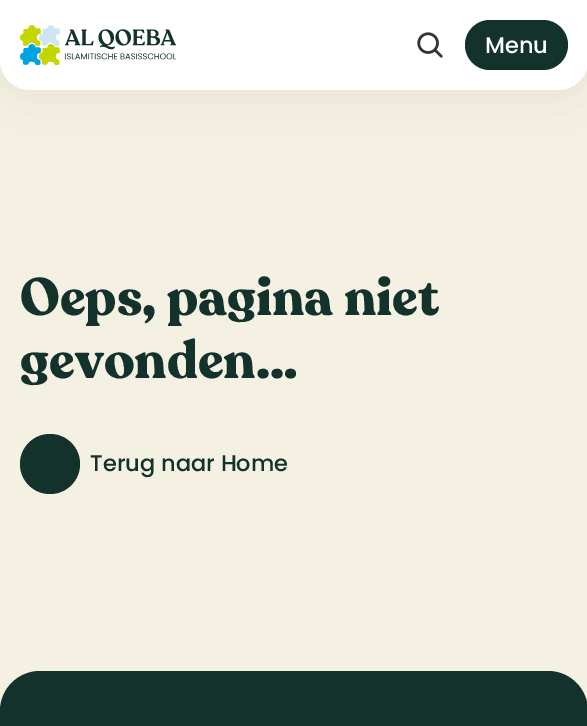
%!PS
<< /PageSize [587 726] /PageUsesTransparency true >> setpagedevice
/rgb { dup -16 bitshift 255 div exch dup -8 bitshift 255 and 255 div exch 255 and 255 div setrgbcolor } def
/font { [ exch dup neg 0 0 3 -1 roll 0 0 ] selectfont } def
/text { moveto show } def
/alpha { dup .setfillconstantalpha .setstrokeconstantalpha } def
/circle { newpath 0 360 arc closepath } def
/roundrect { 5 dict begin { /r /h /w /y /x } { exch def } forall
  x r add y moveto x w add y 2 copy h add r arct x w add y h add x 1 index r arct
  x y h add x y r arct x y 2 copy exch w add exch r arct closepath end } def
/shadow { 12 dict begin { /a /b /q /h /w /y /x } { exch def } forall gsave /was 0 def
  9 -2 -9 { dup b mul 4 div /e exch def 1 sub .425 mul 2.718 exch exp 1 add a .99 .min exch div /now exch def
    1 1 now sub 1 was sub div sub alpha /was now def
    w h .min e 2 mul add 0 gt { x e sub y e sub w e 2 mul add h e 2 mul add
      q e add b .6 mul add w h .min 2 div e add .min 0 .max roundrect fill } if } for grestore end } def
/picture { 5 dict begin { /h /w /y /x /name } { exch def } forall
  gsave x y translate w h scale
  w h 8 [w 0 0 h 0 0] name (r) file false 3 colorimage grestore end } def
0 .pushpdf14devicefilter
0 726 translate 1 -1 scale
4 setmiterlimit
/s1 { /Poppins-Medium 22.5 font 16#FFFFFF rgb } def
/s2 { /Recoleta-Bold 52.5 font 16#13322B rgb } def
/s3 { /Poppins-Medium 22.5 font 16#13322B rgb } def
16#F4F0E2 rgb
0 0 587 726 rectfill
16#000000 rgb
-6 -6 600 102 36 30 0.05 shadow
16#FFFFFF rgb
0 0 moveto 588 0 lineto 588 60 lineto 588 76.5 574.5 90 558 90 curveto 30 90 lineto 13.5 90 0 76.5 0 60 curveto closepath fill
(pic1.raw) 20 25 156 40 picture
(pic2.raw) 417 32 26 26 picture
16#13322B rgb
465 20 103 50 25 roundrect fill
s1
(Menu) 485 53 text
s2
(Oeps, pagina niet) 20 315 text
(gevonden…) 20 378 text
50 464 30 circle fill
s3
(Terug naar Home) 90 471 text
40 671 moveto 548 671 lineto 570 671 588 689 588 711 curveto 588 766 lineto 0 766 lineto 0 711 lineto 0 689 18 671 40 671 curveto closepath fill
.poppdf14devicefilter showpage
